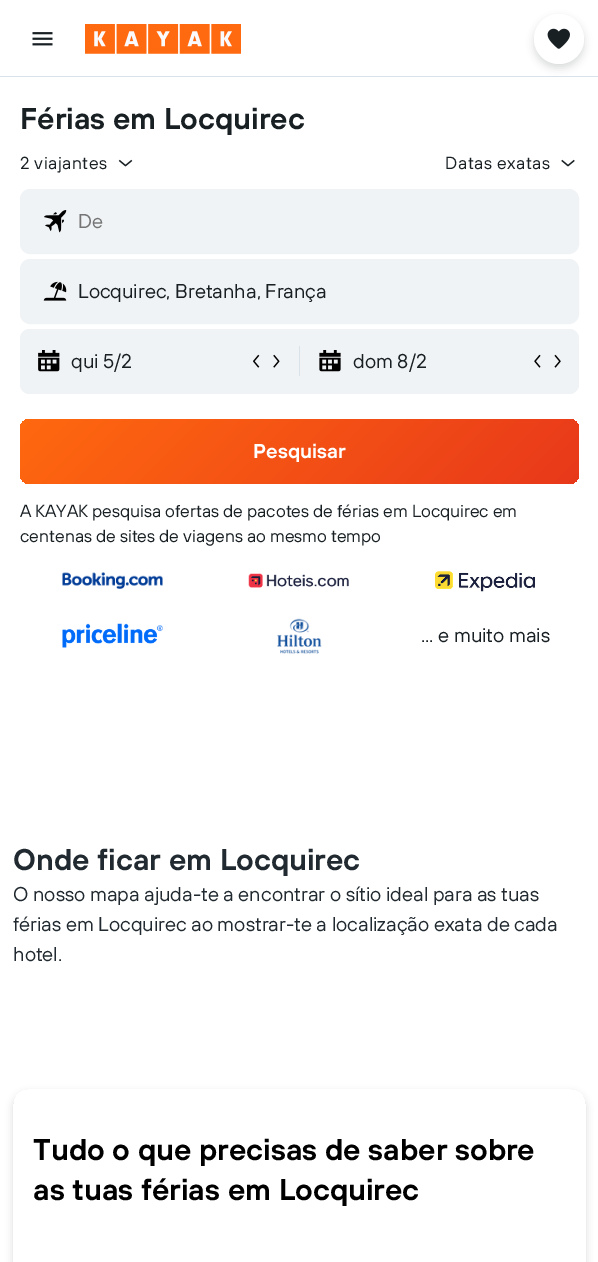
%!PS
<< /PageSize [598 1262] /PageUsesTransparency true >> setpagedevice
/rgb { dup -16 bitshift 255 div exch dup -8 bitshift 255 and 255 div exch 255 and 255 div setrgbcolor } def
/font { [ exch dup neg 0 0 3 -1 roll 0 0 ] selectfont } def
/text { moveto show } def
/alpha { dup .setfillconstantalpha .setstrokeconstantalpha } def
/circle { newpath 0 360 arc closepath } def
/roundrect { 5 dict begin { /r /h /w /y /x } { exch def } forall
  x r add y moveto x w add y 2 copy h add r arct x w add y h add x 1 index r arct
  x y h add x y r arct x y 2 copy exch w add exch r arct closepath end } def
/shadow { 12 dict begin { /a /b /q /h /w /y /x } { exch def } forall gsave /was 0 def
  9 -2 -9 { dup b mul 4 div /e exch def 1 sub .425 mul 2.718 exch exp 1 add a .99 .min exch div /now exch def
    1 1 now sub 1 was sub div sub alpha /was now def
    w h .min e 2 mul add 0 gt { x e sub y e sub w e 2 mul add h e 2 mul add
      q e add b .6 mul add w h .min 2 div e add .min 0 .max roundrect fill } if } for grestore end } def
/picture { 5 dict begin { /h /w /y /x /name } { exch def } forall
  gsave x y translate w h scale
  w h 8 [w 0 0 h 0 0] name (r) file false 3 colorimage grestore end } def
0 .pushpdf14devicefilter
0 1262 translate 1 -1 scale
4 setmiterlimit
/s1 { /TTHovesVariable-SemiBold 30 font 16#192024 rgb } def
/s2 { /TTHovesVariable-Regular 20 font 16#757575 rgb } def
/s3 { /TTHovesVariable-Regular 20 font 16#192024 rgb } def
/s4 { /TTHovesVariable-SemiBold 20 font 16#FFFFFF rgb } def
/s5 { /TTHovesVariable-Regular 17.5 font 16#192024 rgb } def
/s6 { /TTHovesVariable-SemiBold 30 font 16#212A30 rgb } def
/s7 { /TTHovesVariable-Regular 20 font 16#212A30 rgb } def
/s8 { /TTHovesVariable-SemiBold 30 font 16#000000 rgb } def
16#FFFFFF rgb
0 0 598 1262 rectfill
16#D9E2E8 rgb
0 76 598 1 rectfill
(pic1.raw) 32 32 21 14 picture
(pic2.raw) 85 24 156 30 picture
16#192024 rgb
534 18 50 50 25 4 0.16 shadow
16#FFFFFF rgb
559 39 25 circle fill
(pic3.raw) 547 28 23 21 picture
s1
(Férias em Locquirec) 20 129 text
/TTHovesVariable-Regular 17.5 font
20 169 moveto 0.5 0 (2 viajantes) ashow
(pic4.raw) 118 159 15 8 picture
445 169 moveto 0.5 0 (Datas exatas) ashow
(pic5.raw) 561 159 14 8 picture
16#F0F3F5 rgb
20.5 189.5 558 64 9.5 roundrect gsave fill grestore
stroke
(pic6.raw) 44 210 23 23 picture
s2
(De) 78 228 text
16#F0F3F5 rgb
20.5 259.5 558 64 9.5 roundrect gsave fill grestore
stroke
(pic7.raw) 43 281 24 20 picture
s3
(Locquirec, Bretanha, França) 78 298 text
16#F0F3F5 rgb
20 329 559 65 10 roundrect fill
20 329 278 65 10 roundrect fill
(pic8.raw) 38 350 22 22 picture
s3
(qui 5/2) 71 368 text
(pic9.raw) 253 354 7 14 picture
(pic10.raw) 273 354 7 14 picture
16#D9E2E8 rgb
299 346 1 30 rectfill
16#F0F3F5 rgb
301 329 278 65 10 roundrect fill
(pic11.raw) 319 350 22 22 picture
s3
(dom 8/2) 353 368 text
(pic12.raw) 534 354 7 14 picture
(pic13.raw) 554 354 7 14 picture
gsave 20 419 559 65 10 roundrect clip newpath
<< /ShadingType 2 /ColorSpace /DeviceRGB /Coords [143 295 455 607] /Extend [true true] /Function << /FunctionType 2 /Domain [0 1] /C0 [1 0.412 0.059] /C1 [0.91 0.22 0.106] /N 1 >> >> shfill grestore
s4
(Pesquisar) 253 458 text
s5
(A KAYAK pesquisa ofertas de pacotes de férias em Locquirec em) 20 517 text
(centenas de sites de viagens ao mesmo tempo) 20 542 text
(pic14.raw) 62 572 101 17 picture
(pic15.raw) 248 573 101 15 picture
(pic16.raw) 435 571 100 21 picture
(pic17.raw) 62 623 101 25 picture
(pic18.raw) 277 618 45 36 picture
s3
(... e muito mais) 421 642 text
s6
(Onde ficar em Locquirec) 13 870 text
s7
(O nosso mapa ajuda-te a encontrar o sítio ideal para as tuas) 13 901 text
(férias em Locquirec ao mostrar-te a localização exata de cada) 13 931 text
(hotel.) 13 961 text
gsave
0 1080 moveto 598 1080 lineto 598 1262 lineto 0 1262 lineto closepath 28 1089 moveto 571 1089 lineto 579.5 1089 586 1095.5 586 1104 curveto 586 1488 lineto 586 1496.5 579.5 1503 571 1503 curveto 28 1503 lineto 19.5 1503 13 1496.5 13 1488 curveto 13 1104 lineto 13 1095.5 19.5 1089 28 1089 curveto closepath eoclip newpath
16#192024 rgb
13 1093 573 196 15 4 0.16 shadow
grestore
s8
(Tudo o que precisas de saber sobre) 33 1160 text
(as tuas férias em Locquirec) 33 1200 text
.poppdf14devicefilter showpage
